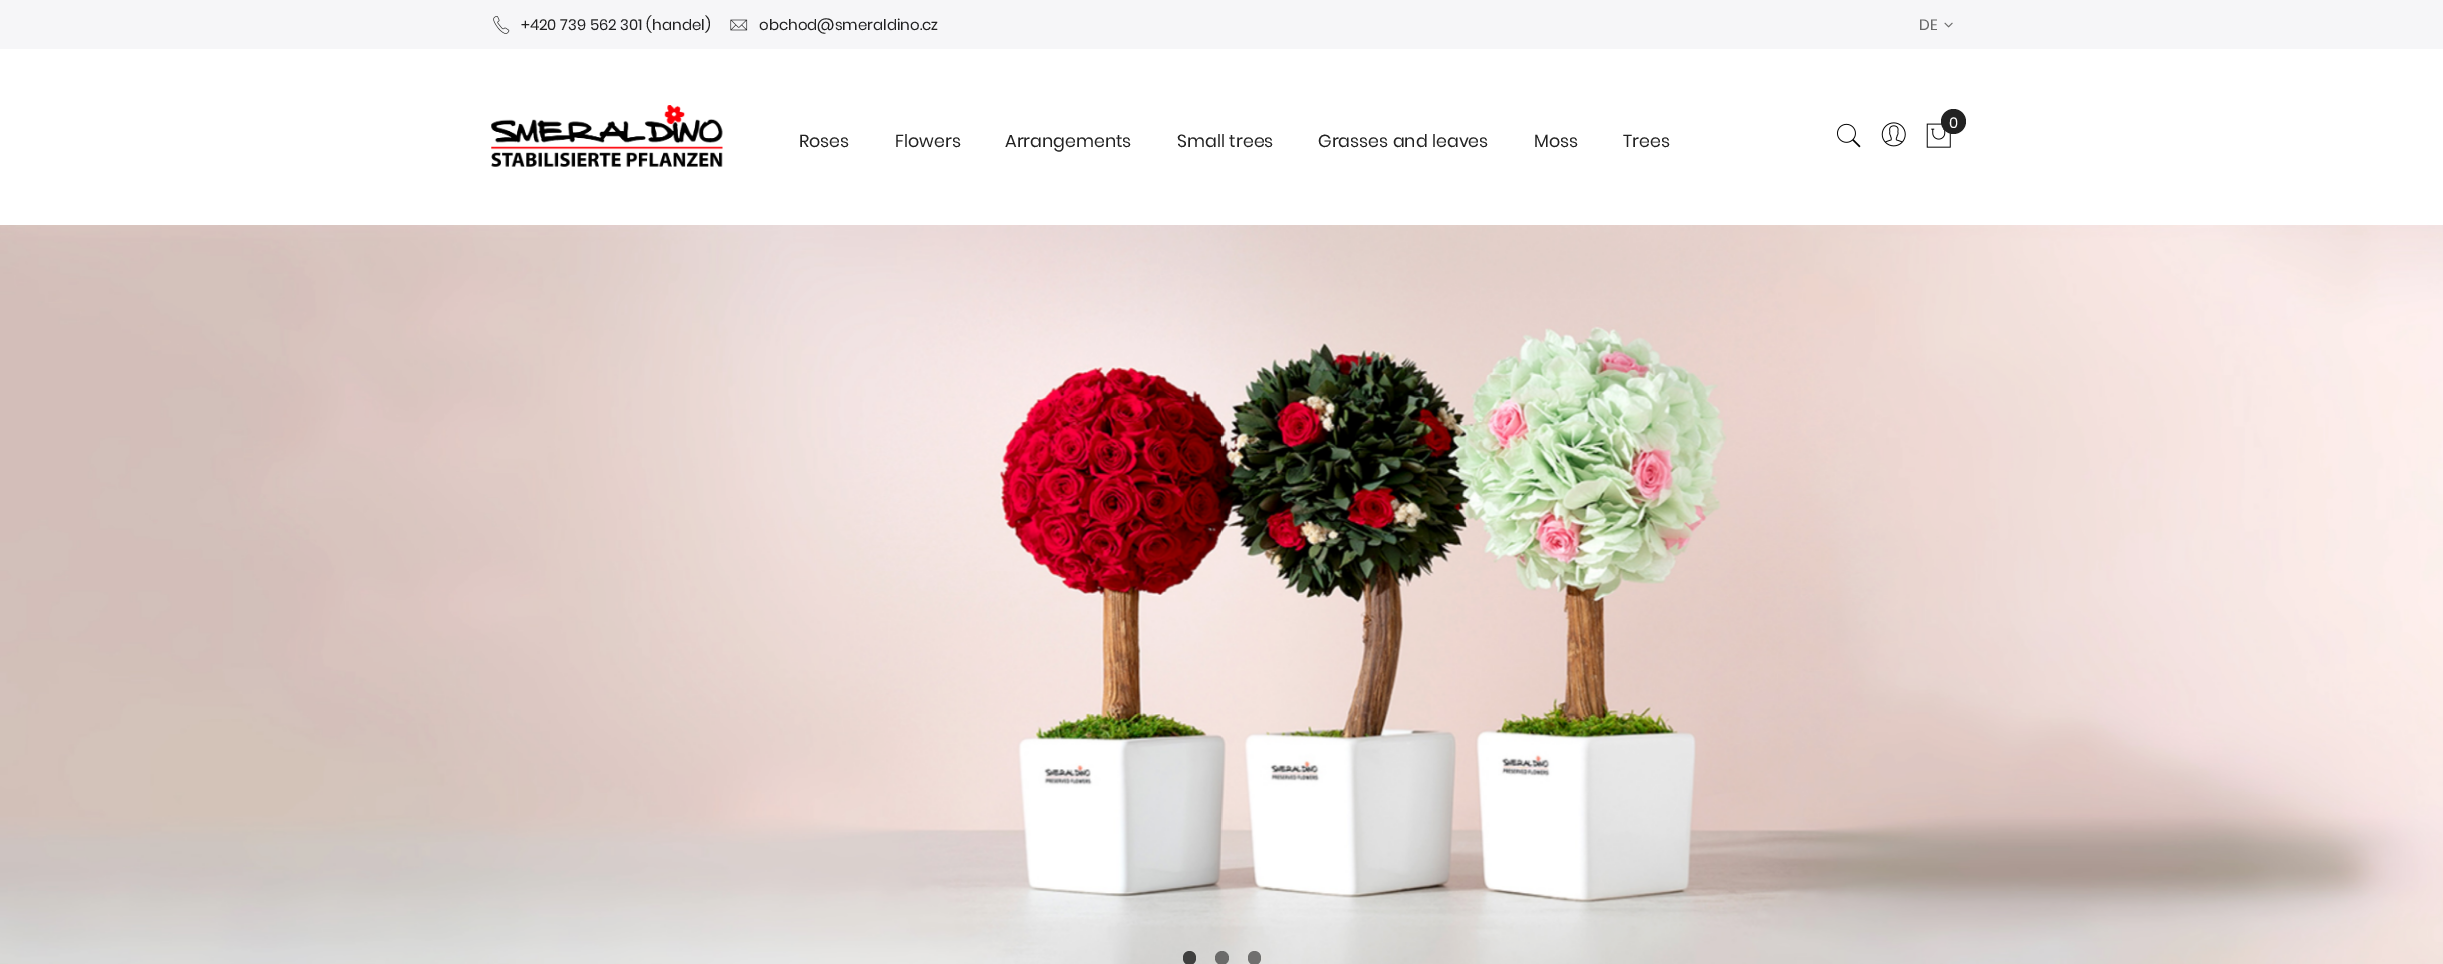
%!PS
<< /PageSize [2443 964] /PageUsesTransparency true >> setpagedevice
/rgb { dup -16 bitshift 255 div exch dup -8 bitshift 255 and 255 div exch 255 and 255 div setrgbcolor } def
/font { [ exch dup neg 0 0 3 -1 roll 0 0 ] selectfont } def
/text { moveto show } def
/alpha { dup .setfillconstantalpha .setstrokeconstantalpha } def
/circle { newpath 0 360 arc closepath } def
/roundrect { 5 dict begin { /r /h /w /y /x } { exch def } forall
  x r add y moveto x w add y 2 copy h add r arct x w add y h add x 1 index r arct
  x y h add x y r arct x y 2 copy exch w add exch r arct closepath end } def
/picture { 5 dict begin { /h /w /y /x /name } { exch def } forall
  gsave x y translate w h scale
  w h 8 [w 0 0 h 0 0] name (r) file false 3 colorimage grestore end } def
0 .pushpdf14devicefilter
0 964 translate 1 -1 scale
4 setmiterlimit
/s1 { /Poppins-Regular 15 font 16#222222 rgb } def
/s2 { /Poppins-Regular 15 font 16#696969 rgb } def
/s3 { /Poppins-Regular 15 font 16#FFFFFF rgb } def
/s4 { /Poppins-Regular 17.5 font 16#222222 rgb } def
16#FFFFFF rgb
0 0 2443 964 rectfill
16#F6F6F8 rgb
0 0 2443 49 rectfill
(pic1.raw) 493 16 17 18 picture
s1
(+420 739 562 301 \(handel\)) 521 30 text
(pic2.raw) 730 19 18 12 picture
(obchod@smeraldino.cz) 759 30 text
s2
(DE) 1919 30 text
(pic3.raw) 1944 22 9 6 picture
(pic4.raw) 491 105 232 62 picture
(pic5.raw) 1837 123 24 25 picture
(pic6.raw) 1881 122 25 25 picture
(pic7.raw) 1926 123 25 25 picture
16#222222 rgb
1953.5 121.5 12.5 circle fill
s3
(0) 1949 128 text
s4
(Roses) 799 147 text
(Flowers) 895 147 text
(Arrangements) 1005 147 text
(Small trees) 1177 147 text
(Grasses and leaves) 1318 147 text
(Moss) 1534 147 text
(Trees) 1623 147 text
(pic8.raw) 0 225 2443 739 picture
0.7 alpha
16#000000 rgb
1183 951 13 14 6.5 roundrect fill
0.5 alpha
1222 958 7 circle fill
1248 951 13 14 6.5 roundrect fill
.poppdf14devicefilter showpage
